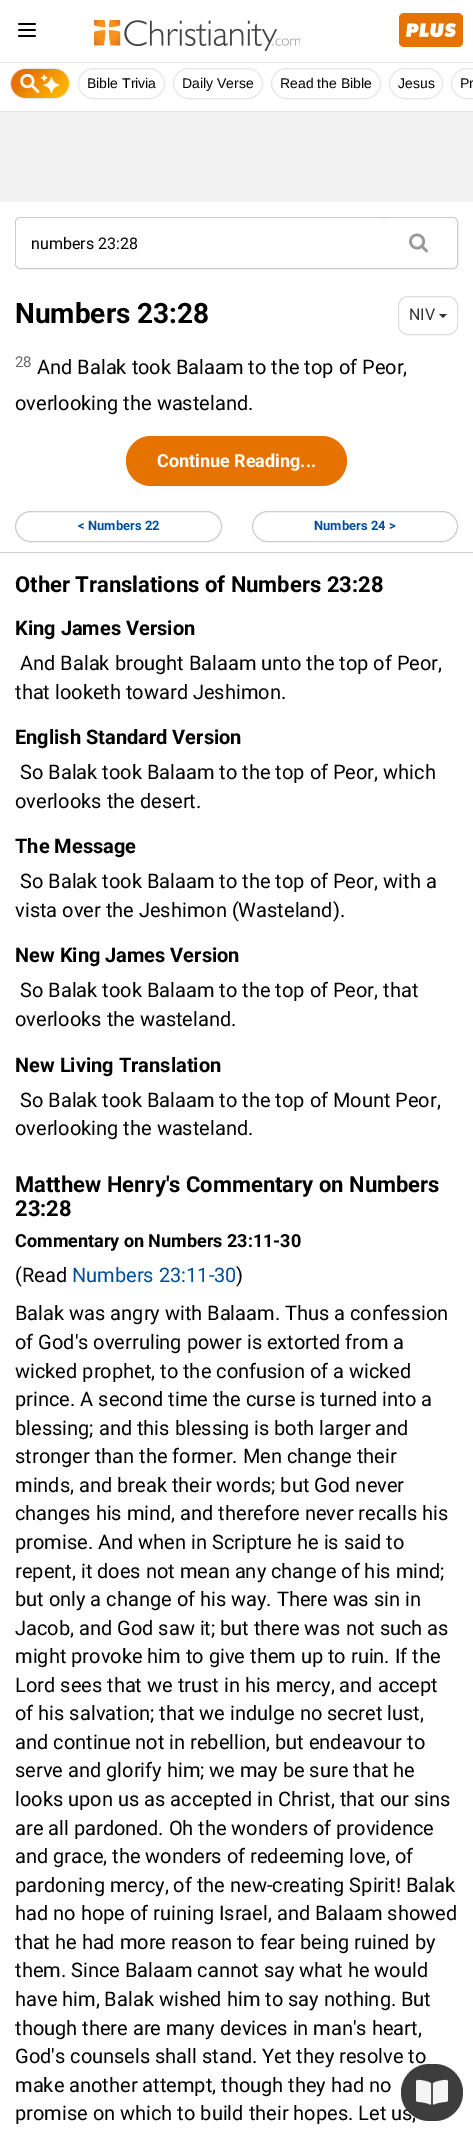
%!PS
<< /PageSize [473 2131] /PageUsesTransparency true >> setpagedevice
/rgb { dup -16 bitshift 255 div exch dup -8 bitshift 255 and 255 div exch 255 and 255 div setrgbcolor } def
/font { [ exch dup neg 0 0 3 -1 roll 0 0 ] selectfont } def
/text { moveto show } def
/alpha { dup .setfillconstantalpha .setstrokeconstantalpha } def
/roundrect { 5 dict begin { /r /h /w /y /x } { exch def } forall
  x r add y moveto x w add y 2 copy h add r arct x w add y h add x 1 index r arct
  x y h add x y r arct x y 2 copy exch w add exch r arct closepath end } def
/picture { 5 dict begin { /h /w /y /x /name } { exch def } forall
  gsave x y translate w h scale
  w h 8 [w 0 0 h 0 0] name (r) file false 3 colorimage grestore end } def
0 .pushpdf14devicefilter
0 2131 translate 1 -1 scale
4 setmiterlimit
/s1 { /LiberationSans-Regular 14 font 16#000000 rgb } def
/s2 { /Roboto-Regular 16 font 16#000000 rgb } def
/s3 { /Roboto-Bold 28 font 16#000000 rgb } def
/s4 { /Roboto-Regular 16 font 16#333333 rgb } def
/s5 { /Roboto-Regular 15 font 16#666666 rgb } def
/s6 { /Roboto-Regular 20 font 16#000000 rgb } def
/s7 { /Roboto-Bold 18 font 16#FFFFFF rgb } def
/s8 { /Roboto-Bold 13 font 16#004E98 rgb } def
/s9 { /Roboto-Bold 22 font 16#000000 rgb } def
/s10 { /Roboto-Bold 20 font 16#000000 rgb } def
/s11 { /Roboto-Bold 18 font 16#000000 rgb } def
/s12 { /Roboto-Regular 20 font 16#004E98 rgb } def
16#FFFFFF rgb
0 0 473 2131 rectfill
16#E6E6E6 rgb
0 111 473 1 rectfill
0 62 473 1 rectfill
(pic1.raw) 18 23 18 14 picture
(pic2.raw) 94 20 206 31 picture
16#E67300 rgb
399 13 64 34 5 roundrect fill
(pic3.raw) 399 16 64 28 picture
16#E6E6E6 rgb
10.5 68.5 59 30 15 roundrect stroke
(pic4.raw) 11 69 58 29 picture
78.5 68.5 86 30 15 roundrect stroke
s1
(Bible Trivia) 87 88 text
16#E6E6E6 rgb
173.5 68.5 89 30 15 roundrect stroke
s1
(Daily Verse) 182 88 text
16#E6E6E6 rgb
271.5 68.5 109 30 15 roundrect stroke
s1
(Read the Bible) 280 88 text
16#E6E6E6 rgb
389.5 68.5 53 30 15 roundrect stroke
s1
(Jesus) 398 88 text
16#E6E6E6 rgb
451.5 68.5 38 30 15 roundrect stroke
s1
(Pr) 460 88 text
16#F2F2F2 rgb
0 112 473 90 rectfill
16#CCCCCC rgb
15.5 217.5 442 51 4.5 roundrect stroke
16#FFFFFF rgb
16 218 368 50 5 roundrect fill
s2
(numbers 23:28) 31 249 text
16#FFFFFF rgb
384 218 73 50 5 roundrect fill
(pic5.raw) 409 233 19 20 picture
s3
(Numbers 23:28) 15 323 text
16#DDDDDD rgb
398.5 296.5 59 38 9.5 roundrect stroke
s4
(NIV) 409 320 text
439 314 moveto 447 314 lineto 443 318 lineto closepath fill
s5
(28) 15 367 text
s6
(And Balak took Balaam to the top of Peor,) 37 374 text
(overlooking the wasteland.) 15 410 text
16#E67300 rgb
126 436 221 50 25 roundrect fill
s7
(Continue Reading...) 157 467 text
16#CCCCCC rgb
15.5 511.5 206 30 15 roundrect stroke
s8
(< Numbers 22) 78 530 text
16#CCCCCC rgb
252.5 511.5 205 30 15 roundrect stroke
s8
(Numbers 24 >) 314 530 text
16#CCCCCC rgb
0 552 473 1 rectfill
s9
(Other Translations of Numbers 23:28) 15 592 text
s10
(King James Version) 15 635 text
s6
(And Balak brought Balaam unto the top of Peor,) 20 670 text
(that looketh toward Jeshimon.) 15 699 text
s10
(English Standard Version) 15 744 text
s6
(So Balak took Balaam to the top of Peor, which) 20 779 text
(overlooks the desert.) 15 808 text
s10
(The Message) 15 853 text
s6
(So Balak took Balaam to the top of Peor, with a) 20 888 text
(vista over the Jeshimon \(Wasteland\).) 15 917 text
s10
(New King James Version) 15 962 text
s6
(So Balak took Balaam to the top of Peor, that) 20 997 text
(overlooks the wasteland.) 15 1026 text
s10
(New Living Translation) 15 1072 text
s6
(So Balak took Balaam to the top of Mount Peor,) 20 1107 text
(overlooking the wasteland.) 15 1135 text
s9
(Matthew Henry's Commentary on Numbers) 15 1192 text
(23:28) 15 1216 text
s11
(Commentary on Numbers 23:11-30) 15 1247 text
s6
(\(Read) 15 1282 text
s12
(Numbers 23:11-30) 72 1282 text
s6
(\)) 236 1282 text
(Balak was angry with Balaam. Thus a confession) 15 1320 text
(of God's overruling power is extorted from a) 15 1349 text
(wicked prophet, to the confusion of a wicked) 15 1378 text
(prince. A second time the curse is turned into a) 15 1406 text
(blessing; and this blessing is both larger and) 15 1435 text
(stronger than the former. Men change their) 15 1463 text
(minds, and break their words; but God never) 15 1492 text
(changes his mind, and therefore never recalls his) 15 1520 text
(promise. And when in Scripture he is said to) 15 1549 text
(repent, it does not mean any change of his mind;) 15 1578 text
(but only a change of his way. There was sin in) 15 1606 text
(Jacob, and God saw it; but there was not such as) 15 1635 text
(might provoke him to give them up to ruin. If the) 15 1663 text
(Lord sees that we trust in his mercy, and accept) 15 1692 text
(of his salvation; that we indulge no secret lust,) 15 1720 text
(and continue not in rebellion, but endeavour to) 15 1749 text
(serve and glorify him; we may be sure that he) 15 1777 text
(looks upon us as accepted in Christ, that our sins) 15 1806 text
(are all pardoned. Oh the wonders of providence) 15 1835 text
(and grace, the wonders of redeeming love, of) 15 1863 text
(pardoning mercy, of the new-creating Spirit! Balak) 15 1892 text
(had no hope of ruining Israel, and Balaam showed) 15 1920 text
(that he had more reason to fear being ruined by) 15 1949 text
(them. Since Balaam cannot say what he would) 15 1977 text
(have him, Balak wished him to say nothing. But) 15 2006 text
(though there are many devices in man's heart,) 15 2035 text
(God's counsels shall stand. Yet they resolve to) 15 2063 text
(make another attempt, though they had no) 15 2092 text
(promise on which to build their hopes. Let us,) 15 2120 text
0.95 alpha
16#333333 rgb
401 2064 62 57 28.5 roundrect fill
1 alpha
(pic6.raw) 416 2079 32 26 picture
.poppdf14devicefilter showpage
